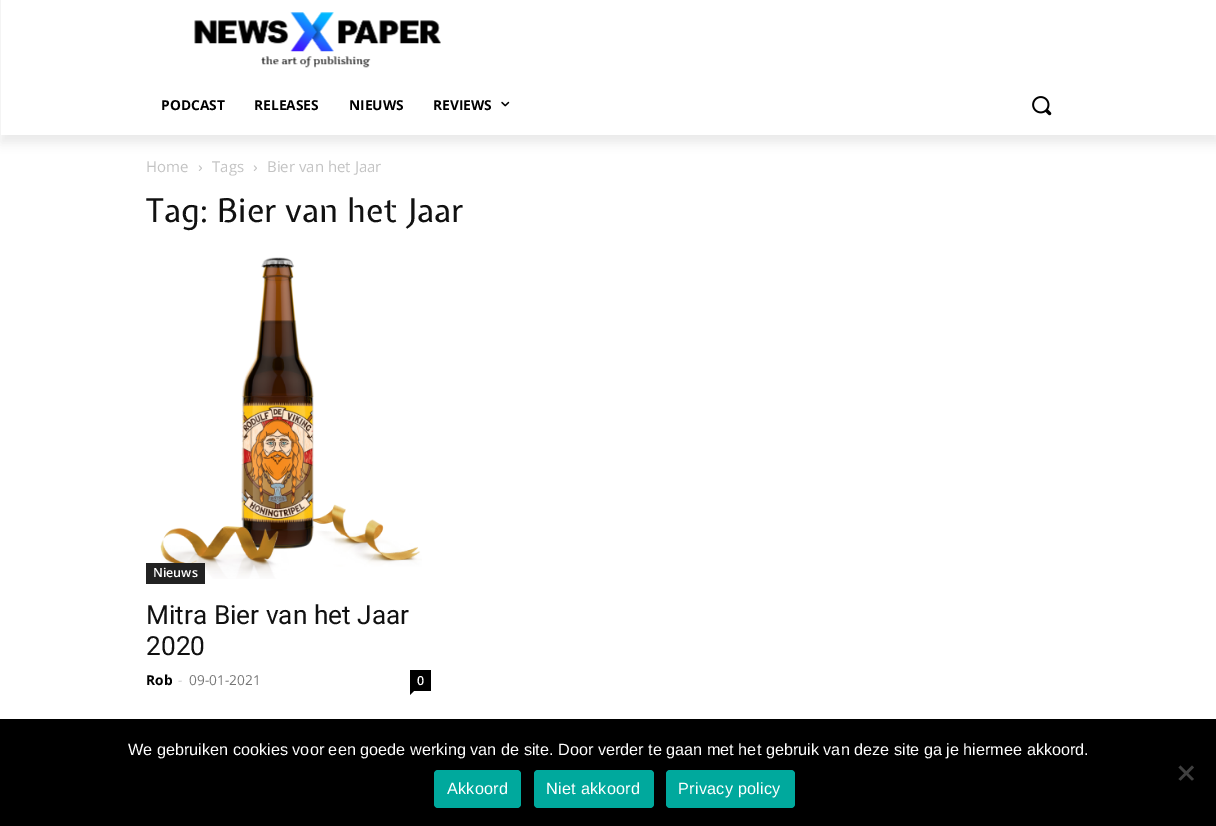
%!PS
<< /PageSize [1216 826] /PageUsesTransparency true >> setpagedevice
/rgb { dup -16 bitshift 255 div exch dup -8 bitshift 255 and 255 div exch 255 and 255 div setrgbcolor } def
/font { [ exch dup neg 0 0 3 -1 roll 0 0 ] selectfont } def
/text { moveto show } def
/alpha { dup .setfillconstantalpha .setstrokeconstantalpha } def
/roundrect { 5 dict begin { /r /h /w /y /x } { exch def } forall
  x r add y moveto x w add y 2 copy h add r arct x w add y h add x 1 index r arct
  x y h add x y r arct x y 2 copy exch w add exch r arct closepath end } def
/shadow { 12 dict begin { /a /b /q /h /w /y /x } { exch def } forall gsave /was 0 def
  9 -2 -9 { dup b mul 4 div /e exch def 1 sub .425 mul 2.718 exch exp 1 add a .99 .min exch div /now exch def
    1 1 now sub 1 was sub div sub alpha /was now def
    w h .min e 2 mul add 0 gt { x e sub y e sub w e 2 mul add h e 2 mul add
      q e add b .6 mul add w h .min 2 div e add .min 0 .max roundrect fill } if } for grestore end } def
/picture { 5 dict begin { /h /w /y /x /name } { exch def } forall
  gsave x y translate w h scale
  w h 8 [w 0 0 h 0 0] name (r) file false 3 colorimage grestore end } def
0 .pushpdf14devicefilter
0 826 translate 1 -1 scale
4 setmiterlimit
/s1 { /OpenSans-Bold 13.75 font 16#000000 rgb } def
/s2 { /OpenSans-Regular 15 font 16#C3C3C3 rgb } def
/s3 { /ExpletusSans-Regular 32.5 font 16#111111 rgb } def
/s4 { /OpenSans-SemiBold 12.5 font 16#FFFFFF rgb } def
/s5 { /Roboto-Regular 26.25 font 16#111111 rgb } def
/s6 { /OpenSans-Regular 13.75 font 16#CCCCCC rgb } def
/s7 { /OpenSans-Regular 13.75 font 16#767676 rgb } def
/s8 { /LiberationSans-Regular 16.25 font 16#FFFFFF rgb } def
16#FFFFFF rgb
0 0 1216 826 rectfill
(pic1.raw) 194 12 247 56 picture
gsave
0 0 moveto 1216 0 lineto 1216 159 lineto 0 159 lineto closepath 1 -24 moveto 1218 -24 lineto 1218 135 lineto 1 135 lineto closepath eoclip newpath
16#000000 rgb
1 -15 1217 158 0 5 0.08 shadow
grestore
s1
(PODCAST) 161 110 text
(RELEASES) 254 110 text
(NIEUWS) 349 110 text
(REVIEWS) 433 110 text
(pic2.raw) 501 101 9 6 picture
(pic3.raw) 1032 96 20 20 picture
s2
(Home) 146 172 text
(pic4.raw) 198 165 4 6 picture
(Tags) 212 172 text
(pic4.raw) 253 165 4 6 picture
(Bier van het Jaar) 267 172 text
s3
(Tag: Bier van het Jaar) 146 222 text
(pic5.raw) 160 257 262 322 picture
16#222222 rgb
146 563 59 21 rectfill
s4
(Nieuws) 153 577 text
s5
(Mitra Bier van het Jaar) 146 624 text
(2020) 146 655 text
s1
(Rob) 146 685 text
s6
(-) 178 685 text
s7
(09-01-2021) 189 685 text
16#000000 rgb
410 670 21 21 rectfill
s4
(0) 417 685 text
16#000000 rgb
410 691 moveto 414 691 lineto 410 695 lineto closepath fill
0 719 1216 107 rectfill
s8
(We gebruiken cookies voor een goede werking van de site. Door verder te gaan met het gebruik van deze site ga je hiermee akkoord.) 128 755 text
16#404040 rgb
1192 765.5 moveto 1194 767.5 lineto 1180.5 780.5 lineto 1178.5 779 lineto closepath fill
1178.5 767.5 moveto 1180.5 765.5 lineto 1194 779 lineto 1192 780.5 lineto closepath fill
16#00A99D rgb
434 770 87 38 4 roundrect fill
16#FFFFFF rgb
447 794 moveto 0.25 0 (Akkoord) ashow
16#00A99D rgb
534 770 120 38 4 roundrect fill
16#FFFFFF rgb
546 794 moveto 0.25 0 (Niet akkoord) ashow
16#00A99D rgb
666 770 129 38 4 roundrect fill
16#FFFFFF rgb
678 794 moveto 0.25 0 (Privacy policy) ashow
.poppdf14devicefilter showpage
